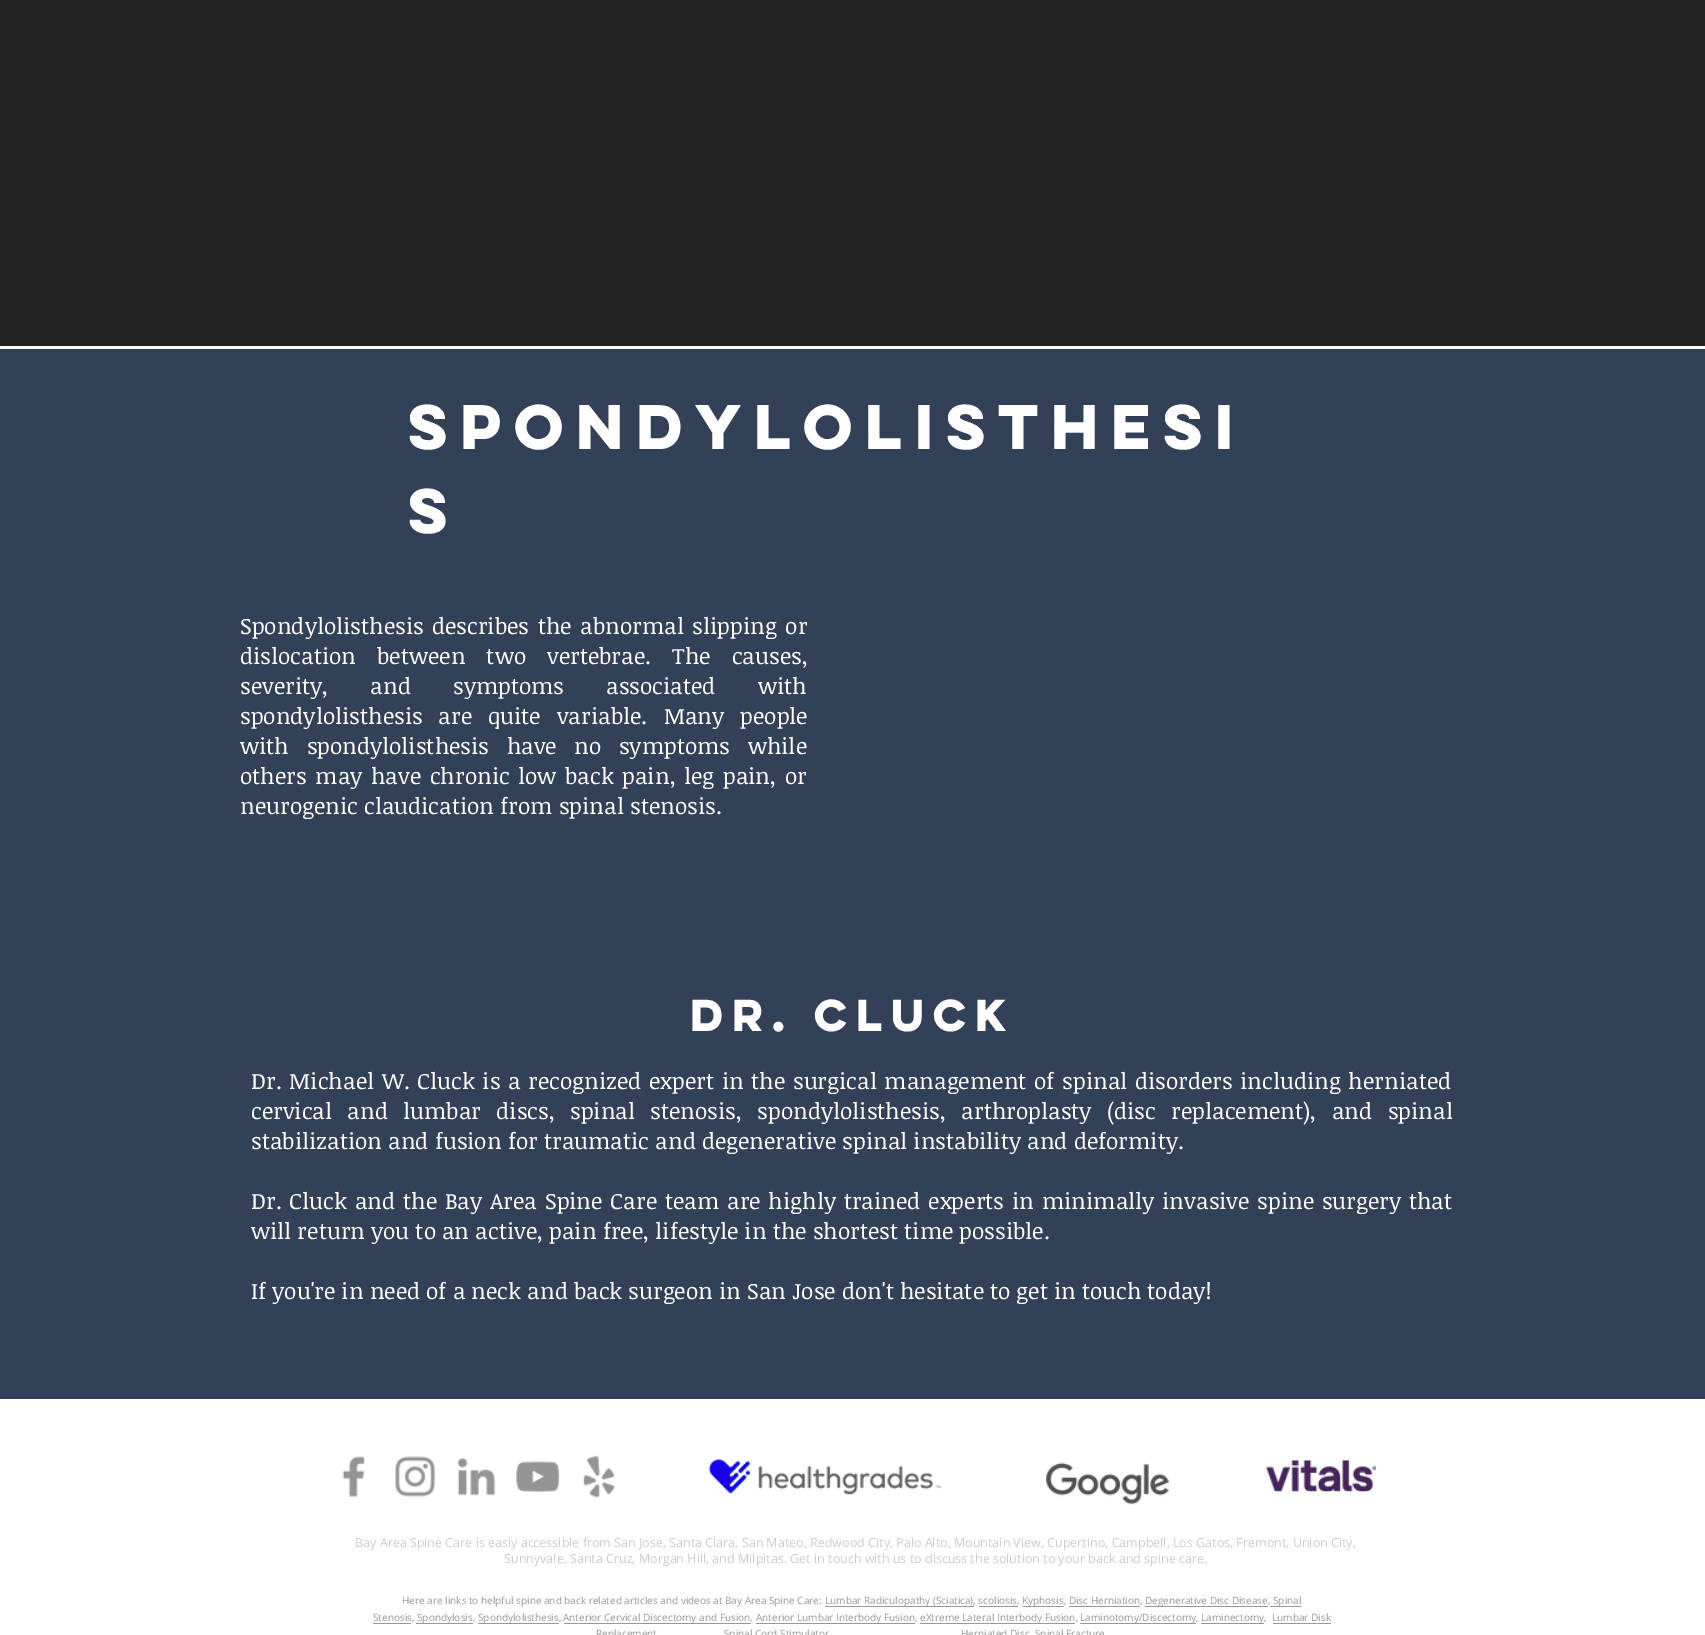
%!PS
<< /PageSize [1705 1635] >> setpagedevice
/rgb { dup -16 bitshift 255 div exch dup -8 bitshift 255 and 255 div exch 255 and 255 div setrgbcolor } def
/font { [ exch dup neg 0 0 3 -1 roll 0 0 ] selectfont } def
/text { moveto show } def
/picture { 5 dict begin { /h /w /y /x /name } { exch def } forall
  gsave x y translate w h scale
  w h 8 [w 0 0 h 0 0] name (r) file false 3 colorimage grestore end } def
0 1635 translate 1 -1 scale
4 setmiterlimit
/s1 { /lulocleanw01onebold-Bold 56.25 font 16#FFFFFF rgb } def
/s2 { /NoticiaText-Regular 22.5 font 16#FFFFFF rgb } def
/s3 { /lulocleanw01onebold-Bold 40 font 16#FFFFFF rgb } def
/s4 { /OpenSans-Regular 12.5 font 16#CCCCCC rgb } def
/s5 { /OpenSans-Regular 10 font 16#999999 rgb } def
16#FFFFFF rgb
0 0 1705 1635 rectfill
16#242323 rgb
0 0 1705 346 rectfill
16#324157 rgb
0 349 1705 1050 rectfill
s1
(spondylolisthesi) 408 449 text
(s) 408 533 text
/NoticiaText-Regular 22.5 font
240 634 moveto 2.5 0 32 (Spondylolisthesis describes the abnormal slipping or) widthshow
240 664 moveto 15 0 32 (dislocation between two vertebrae. The causes,) widthshow
240 694 moveto 36 0 32 (severity, and symptoms associated with) widthshow
240 724 moveto 10 0 32 (spondylolisthesis are quite variable. Many people) widthshow
240 754 moveto 11.5 0 32 (with spondylolisthesis have no symptoms while) widthshow
240 784 moveto 2.5 0 32 (others may have chronic low back pain, leg pain, or) widthshow
(neurogenic claudication from spinal stenosis.) 240 814 text
s3
(Dr. Cluck) 690 1031 text
/NoticiaText-Regular 22.5 font
251 1089 moveto 1.6 0 32 (Dr. Michael W. Cluck is a recognized expert in the surgical management of spinal disorders including herniated) widthshow
251 1119 moveto 9.25 0 32 (cervical and lumbar discs, spinal stenosis, spondylolisthesis, arthroplasty \(disc replacement\), and spinal) widthshow
(stabilization and fusion for traumatic and degenerative spinal instability and deformity.) 251 1149 text
251 1209 moveto 1.7 0 32 (Dr. Cluck and the Bay Area Spine Care team are highly trained experts in minimally invasive spine surgery that) widthshow
(will return you to an active, pain free, lifestyle in the shortest time possible.) 251 1239 text
(If you're in need of a neck and back surgeon in San Jose don't hesitate to get in touch today!) 251 1299 text
(pic1.raw) 342 1456 23 41 picture
(pic2.raw) 395 1456 41 41 picture
(pic3.raw) 457 1457 39 39 picture
(pic4.raw) 516 1461 44 32 picture
(pic5.raw) 583 1455 32 43 picture
(pic6.raw) 708 1458 234 38 picture
(pic7.raw) 1045 1462 124 43 picture
(pic8.raw) 1266 1460 111 32 picture
s4
(Bay Area Spine Care is easiy accessible from San Jose, Santa Clara, San Mateo, Redwood City, Palo Alto, Mountain View, Cupertino, Campbell, Los Gatos, Fremont, Union City,) 355 1547 text
(Sunnyvale, Santa Cruz, Morgan Hill, and Milpitas. Get in touch with us to discuss the solution to your back and spine care.) 504 1563 text
s5
(Here are links to helpful spine and back related articles and videos at Bay Area Spine Care:) 402 1604 text
825 1606 149 1 rectfill
(Lumbar Radiculopathy \(Sciatica\), scoliosis,) 825 1604 text
1023 1606 41 1 rectfill
(Kyphosis, Disc Herniation,) 1022 1604 text
1145 1606 123 1 rectfill
(Degenerative Disc Disease,) 1145 1604 text
1270 1606 31 1 rectfill
(Spinal) 1273 1604 text
979 1606 39 1 rectfill
1069 1606 71 1 rectfill
(Stenosis,) 373 1621 text
373 1623 38 1 rectfill
416 1623 57 1 rectfill
(Spondylosis,) 417 1621 text
478 1623 81 1 rectfill
(Spondylolisthesis,) 478 1621 text
564 1623 187 1 rectfill
(Anterior Cervical Discectomy and Fusion,) 563 1621 text
756 1623 159 1 rectfill
(Anterior Lumbar Interbody Fusion,) 756 1621 text
920 1623 155 1 rectfill
(eXtreme Lateral Interbody Fusion,) 920 1621 text
1080 1623 116 1 rectfill
(Laminotomy/Discectomy,) 1080 1621 text
1201 1623 63 1 rectfill
(Laminectomy,) 1201 1621 text
(Lumbar Disk) 1272 1621 text
1273 1623 58 1 rectfill
(Replacement) 596 1637 text
(Spinal Cord Stimulator) 724 1637 text
(Herniated Disc) 961 1637 text
(Spinal Fracture) 1035 1637 text
showpage
